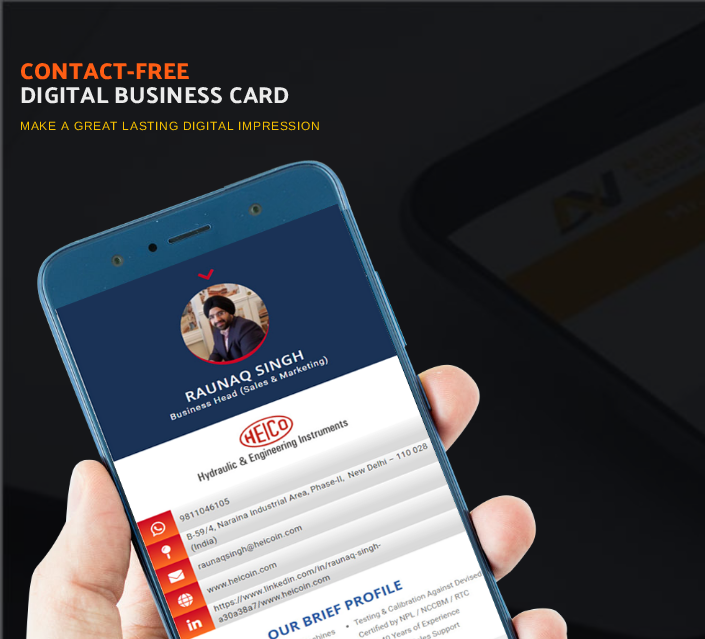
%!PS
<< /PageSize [705 639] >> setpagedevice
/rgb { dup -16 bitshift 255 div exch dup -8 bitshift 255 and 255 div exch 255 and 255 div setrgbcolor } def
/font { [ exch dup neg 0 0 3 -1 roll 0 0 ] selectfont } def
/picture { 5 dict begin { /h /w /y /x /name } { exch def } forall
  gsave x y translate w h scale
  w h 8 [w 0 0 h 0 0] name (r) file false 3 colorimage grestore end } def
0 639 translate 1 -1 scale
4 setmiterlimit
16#FFFFFF rgb
0 0 705 639 rectfill
(pic1.raw) 0 0 705 639 picture
/PalanquinDark-SemiBold 23 font
16#FF5E14 rgb
20 79 moveto 0.2 0 (CONTACT-FREE) ashow
/PalanquinDark-Medium 23 font
16#EBEBEB rgb
20 103 moveto 0.2 0 (DIGITAL BUSINESS CARD) ashow
/LiberationSans-Regular 12 font
16#F7C200 rgb
20 130 moveto 0.7 0 (MAKE A GREAT LASTING DIGITAL IMPRESSION) ashow
(pic2.raw) 25 160 543 479 picture
showpage
